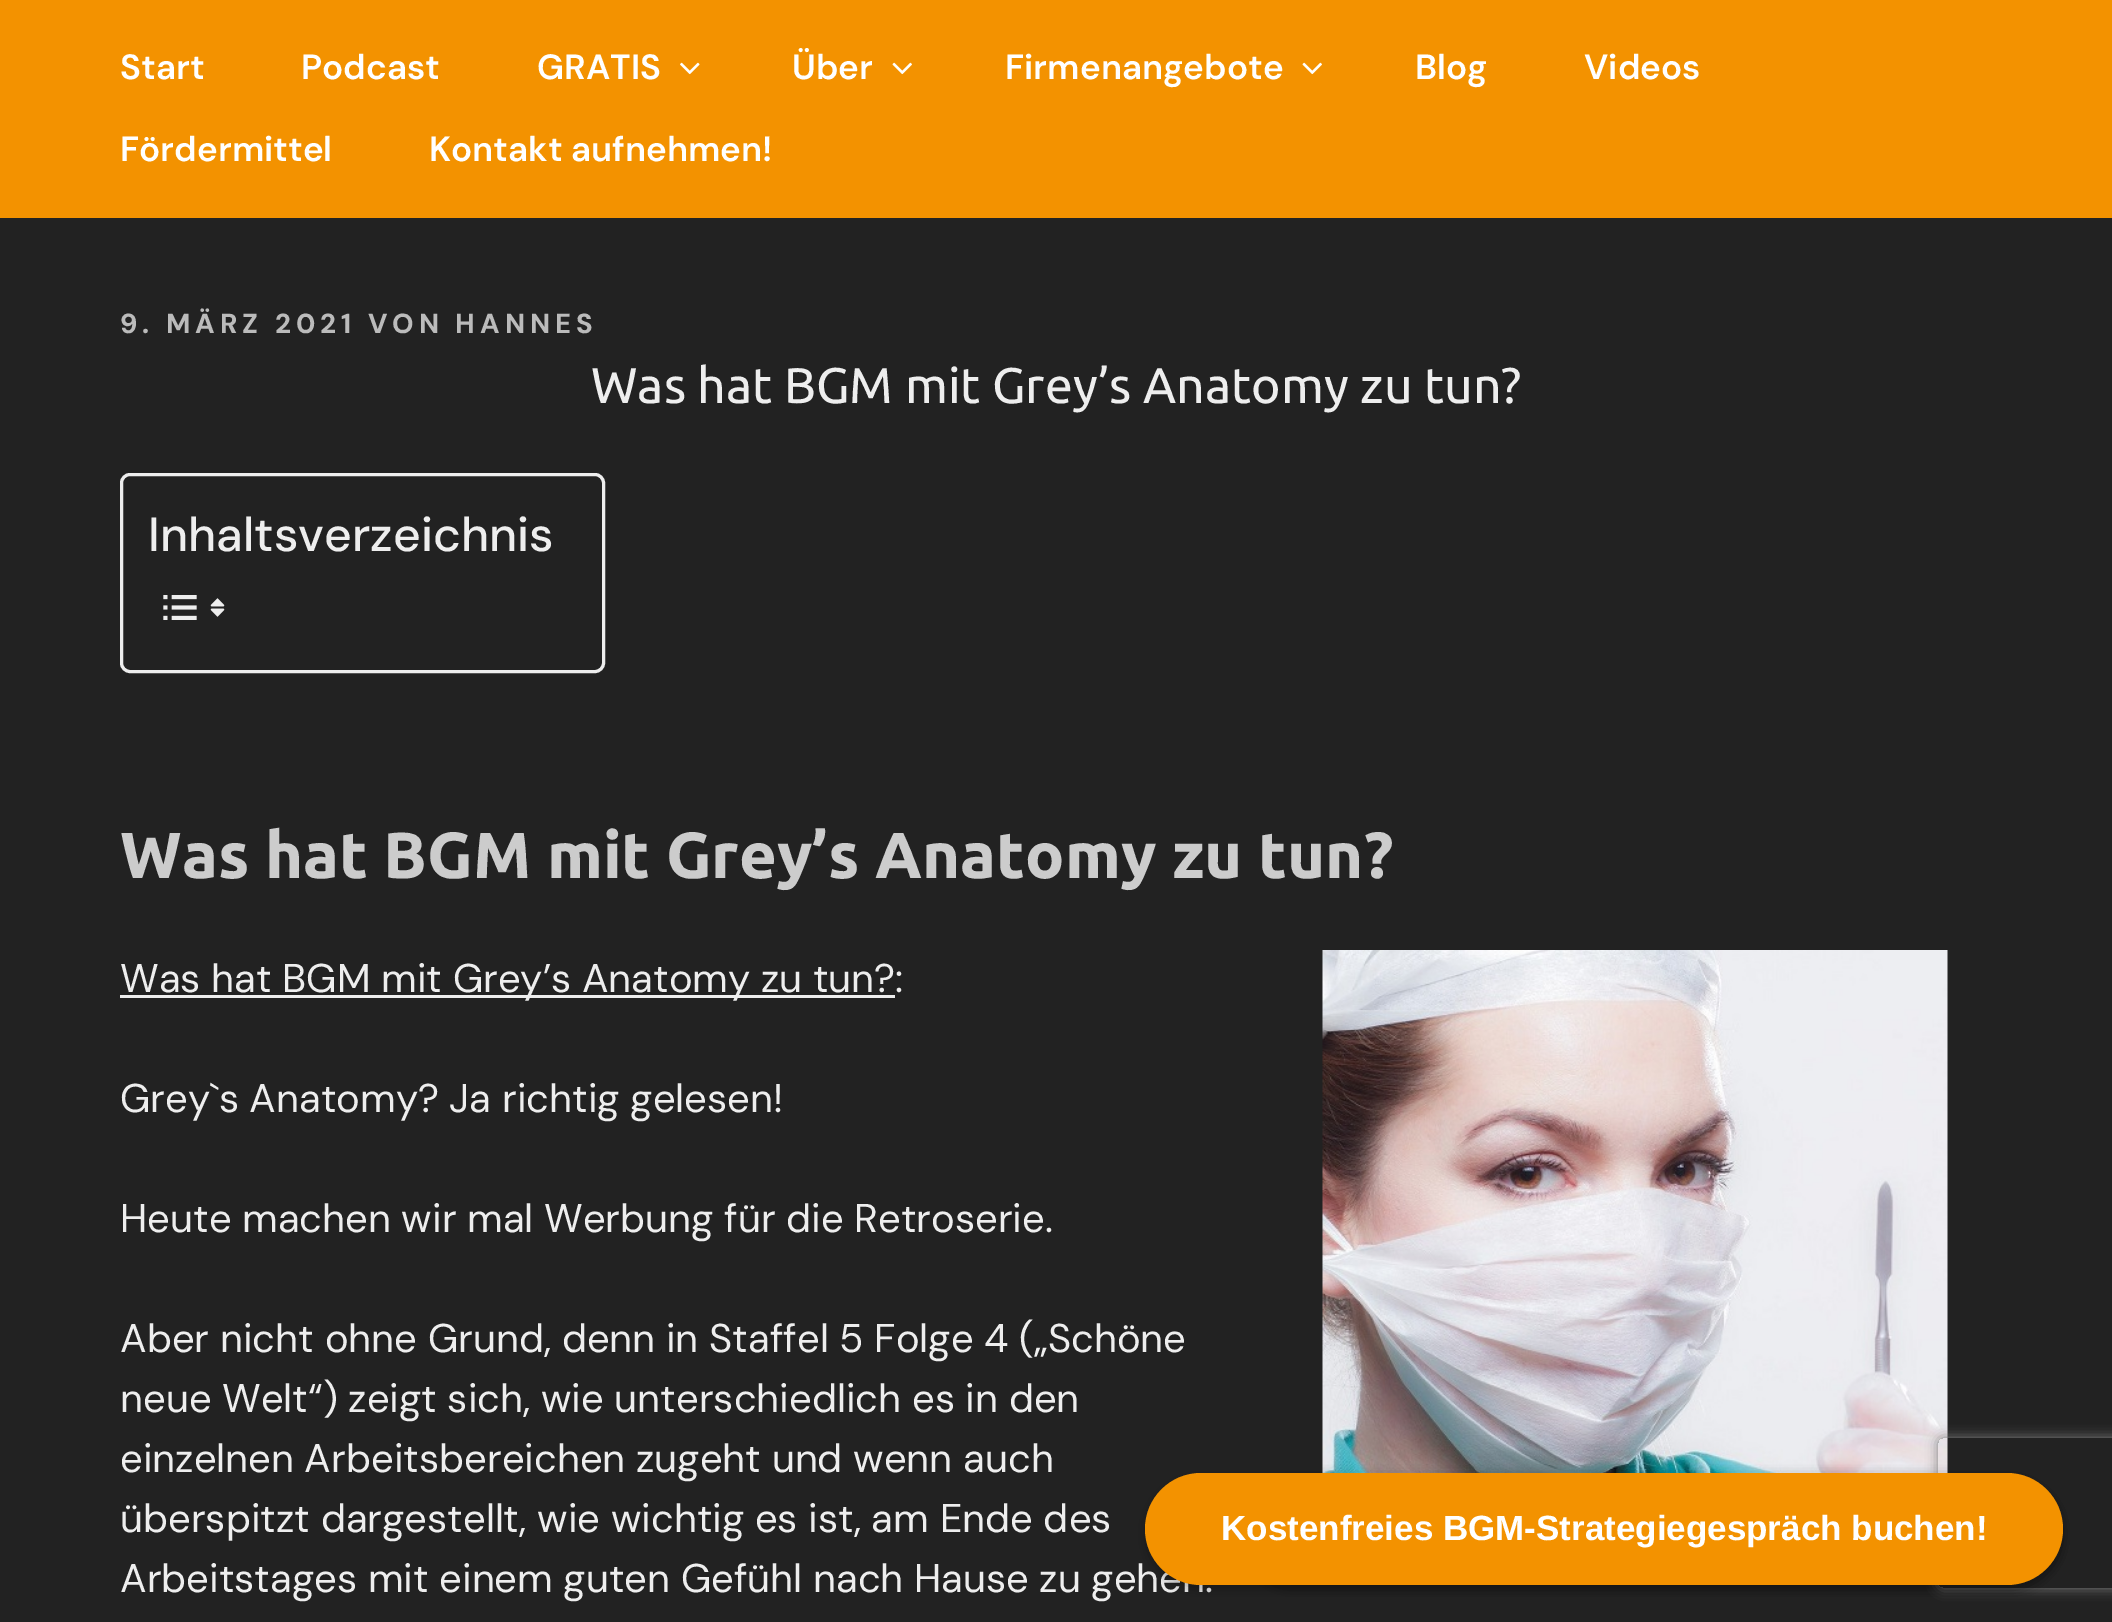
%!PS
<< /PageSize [2112 1622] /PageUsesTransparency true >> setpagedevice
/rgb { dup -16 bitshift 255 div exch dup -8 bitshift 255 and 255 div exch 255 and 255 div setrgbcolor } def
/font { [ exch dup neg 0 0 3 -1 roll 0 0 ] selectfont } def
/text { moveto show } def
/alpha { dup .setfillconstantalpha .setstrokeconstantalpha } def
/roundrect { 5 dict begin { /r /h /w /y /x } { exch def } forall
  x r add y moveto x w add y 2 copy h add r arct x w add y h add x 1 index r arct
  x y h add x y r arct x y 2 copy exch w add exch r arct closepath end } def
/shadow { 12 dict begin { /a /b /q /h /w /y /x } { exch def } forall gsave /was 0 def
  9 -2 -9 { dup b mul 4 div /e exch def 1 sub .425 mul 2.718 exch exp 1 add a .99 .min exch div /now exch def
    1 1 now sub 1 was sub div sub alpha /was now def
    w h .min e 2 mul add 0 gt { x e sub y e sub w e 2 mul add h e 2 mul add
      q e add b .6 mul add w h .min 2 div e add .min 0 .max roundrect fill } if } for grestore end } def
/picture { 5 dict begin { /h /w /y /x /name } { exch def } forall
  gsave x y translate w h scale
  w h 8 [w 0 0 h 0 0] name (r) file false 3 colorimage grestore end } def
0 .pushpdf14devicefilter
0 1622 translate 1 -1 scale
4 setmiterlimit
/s1 { /DMSans-SemiBold 35 font 16#FFFFFF rgb } def
/s2 { /Ubuntu-Regular 50 font 16#EEEEEE rgb } def
/s3 { /DMSans-Medium 48 font 16#EEEEEE rgb } def
/s4 { /Ubuntu-Bold 65 font 16#CCCCCC rgb } def
/s5 { /DMSans-Regular 40 font 16#EEEEEE rgb } def
/s6 { /LiberationSans-Bold 35 font 16#FFFFFF rgb } def
16#222222 rgb
0 0 2112 1622 rectfill
16#F39200 rgb
0 0 2112 218 rectfill
s1
(Start) 120 79 text
(Podcast) 301 79 text
(GRATIS) 537 79 text
(pic1.raw) 680 62 20 13 picture
(Über) 792 79 text
(pic2.raw) 892 62 20 13 picture
(Firmenangebote) 1005 79 text
(pic2.raw) 1302 62 20 13 picture
(Blog) 1415 79 text
(Videos) 1584 79 text
(Fördermittel) 120 161 text
(Kontakt aufnehmen!) 429 161 text
/DMSans-ExtraBold 27.5 font
16#BBBBBB rgb
120 333 moveto 5 0 (9. MÄRZ 2021 VON HANNES) ashow
s2
(Was hat BGM mit Grey’s Anatomy zu tun?) 591 403 text
3 setlinewidth
121.5 474.5 482 197 8.5 roundrect stroke
s3
(Inhaltsverzeichnis) 148 551 text
(pic3.raw) 163 595 34 25 picture
(pic4.raw) 210 598 15 19 picture
s4
(Was hat BGM mit Grey’s Anatomy zu tun?) 120 878 text
16#EEEEEE rgb
120 995 775 3 rectfill
s5
(Was hat BGM mit Grey’s Anatomy zu tun?:) 120 992 text
(Grey`s Anatomy? Ja richtig gelesen!) 120 1112 text
(Heute machen wir mal Werbung für die Retroserie.) 120 1232 text
(Aber nicht ohne Grund, denn in Staffel 5 Folge 4 \(„Schöne) 120 1352 text
(neue Welt“\) zeigt sich, wie unterschiedlich es in den) 120 1412 text
(einzelnen Arbeitsbereichen zugeht und wenn auch) 120 1472 text
(überspitzt dargestellt, wie wichtig es ist, am Ende des) 120 1532 text
(Arbeitstages mit einem guten Gefühl nach Hause zu gehen.) 120 1592 text
(pic5.raw) 1322 950 626 523 picture
gsave
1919 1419 moveto 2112 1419 lineto 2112 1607 lineto 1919 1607 lineto closepath 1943 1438 moveto 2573 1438 lineto 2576 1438 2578 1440 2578 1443 curveto 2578 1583 lineto 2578 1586 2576 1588 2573 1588 curveto 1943 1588 lineto 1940 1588 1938 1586 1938 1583 curveto 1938 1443 lineto 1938 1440 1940 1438 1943 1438 curveto closepath eoclip newpath
16#808080 rgb
1938 1438 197 150 5 6 1 shadow
grestore
16#000000 rgb
1240 1478 823 112 56 6 0.25 shadow
1145 1478 918 112 56 6 0.25 shadow
16#F39200 rgb
1145 1473 918 112 56 roundrect fill
s6
(Kostenfreies BGM-Strategiegespräch buchen!) 1221 1540 text
.poppdf14devicefilter showpage
